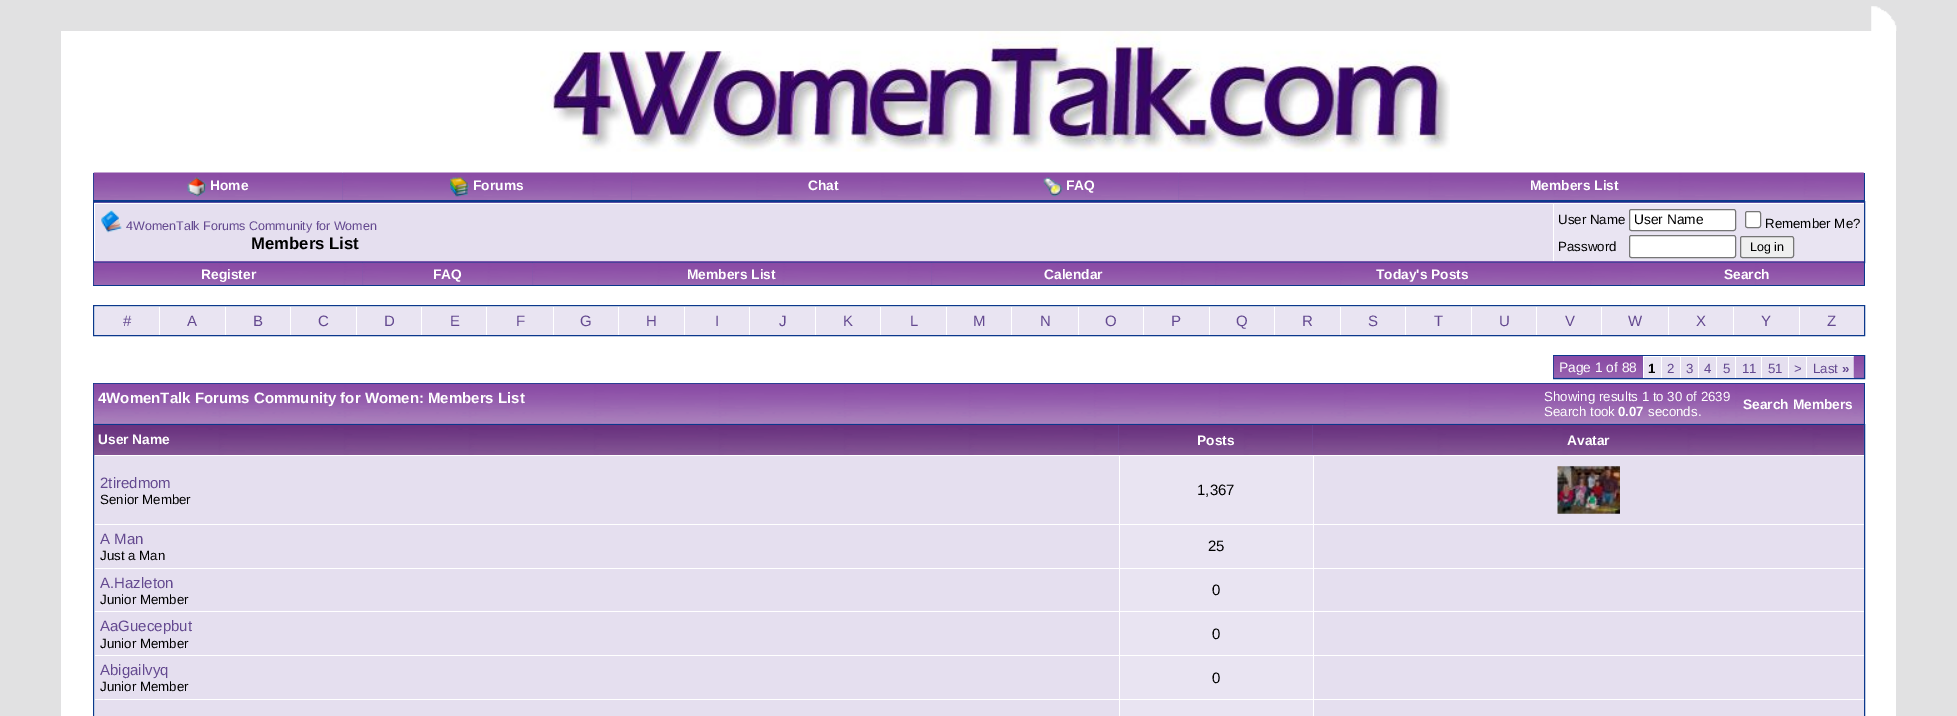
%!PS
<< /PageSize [1957 716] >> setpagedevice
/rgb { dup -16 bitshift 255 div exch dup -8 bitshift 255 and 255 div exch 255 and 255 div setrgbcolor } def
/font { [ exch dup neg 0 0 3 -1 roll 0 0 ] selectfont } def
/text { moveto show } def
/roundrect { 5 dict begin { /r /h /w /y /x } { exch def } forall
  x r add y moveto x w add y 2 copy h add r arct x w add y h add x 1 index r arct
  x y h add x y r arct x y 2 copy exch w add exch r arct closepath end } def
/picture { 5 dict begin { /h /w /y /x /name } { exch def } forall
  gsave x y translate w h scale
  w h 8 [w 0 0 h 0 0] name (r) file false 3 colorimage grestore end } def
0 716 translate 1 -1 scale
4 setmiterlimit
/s1 { /LiberationSans-Bold 13.75 font 16#FFFFFF rgb } def
/s2 { /LiberationSans-Regular 12.5 font 16#644990 rgb } def
/s3 { /LiberationSans-Bold 16.75 font 16#000000 rgb } def
/s4 { /LiberationSans-Regular 13.3 font 16#000000 rgb } def
/s5 { /LiberationSans-Regular 13.75 font 16#000000 rgb } def
/s6 { /LiberationSans-Regular 12.5 font 16#000000 rgb } def
/s7 { /LiberationSans-Regular 15 font 16#644990 rgb } def
/s8 { /LiberationSans-Regular 13.75 font 16#FFFFFF rgb } def
/s9 { /LiberationSans-Bold 13.3 font 16#000000 rgb } def
/s10 { /LiberationSans-Regular 13.3 font 16#644990 rgb } def
/s11 { /LiberationSans-Bold 13.3 font 16#644990 rgb } def
/s12 { /LiberationSans-Bold 15 font 16#FFFFFF rgb } def
/s13 { /LiberationSans-Regular 13.3 font 16#FFFFFF rgb } def
/s14 { /LiberationSans-Bold 13.3 font 16#FFFFFF rgb } def
/s15 { /LiberationSans-Regular 15 font 16#000000 rgb } def
16#E1E1E2 rgb
0 0 1957 716 rectfill
(pic1.raw) 1871 6 26 25 picture
16#FFFFFF rgb
61 31 1835 685 rectfill
(pic2.raw) 540 31 910 121 picture
16#0B388C rgb
1864 173 1 28 rectfill
93 200 1772 1 rectfill
93 173 1 28 rectfill
(pic3.raw) 93 172 250 28 picture
(pic4.raw) 187 177 20 20 picture
s1
(Home) 210 190 text
(pic5.raw) 342 172 290 28 picture
(pic6.raw) 450 177 19 20 picture
(Forums) 473 190 text
(pic7.raw) 631 172 329 28 picture
(Chat) 808 190 text
(pic8.raw) 960 172 219 28 picture
(pic9.raw) 1043 177 20 20 picture
(FAQ) 1066 190 text
(pic10.raw) 1178 172 686 28 picture
(Members List) 1530 190 text
16#7858AD rgb
93.5 201.5 moveto 1864.5 201.5 lineto 1864.5 262.5 lineto 93.5 262.5 lineto closepath gsave fill grestore
16#0B388C rgb
stroke
16#E5DFEF rgb
95 204 1458 57 rectfill
16#FFFFFF rgb
94 203 1770 1 rectfill
94 203 1 58 rectfill
(pic11.raw) 101 210 21 23 picture
s2
(4WomenTalk Forums Community for Women) 126 230 text
s3
(Members List) 251 249 text
16#E9E4F2 rgb
1554 204 310 57 rectfill
16#FFFFFF rgb
1553 203 1 58 rectfill
s4
(User Name) 1558 224 text
16#FFFFFF rgb
1629.5 209.5 106 21 2 roundrect gsave fill grestore
16#767676 rgb
stroke
s5
(User Name) 1634 224 text
16#FFFFFF rgb
1745.5 211.5 15 16 2 roundrect gsave fill grestore
16#767676 rgb
stroke
s4
(Remember Me?) 1765 228 text
(Password) 1558 251 text
16#FFFFFF rgb
1629.5 235.5 106 22 2 roundrect gsave fill grestore
16#767676 rgb
stroke
16#EFEFEF rgb
1740.5 236.5 53 21 2 roundrect gsave fill grestore
16#767676 rgb
stroke
s6
(Log in) 1750 251 text
16#0B388C rgb
1864 263 1 23 rectfill
93 285 1772 1 rectfill
93 263 1 23 rectfill
(pic12.raw) 93 262 270 23 picture
s1
(Register) 201 279 text
(pic13.raw) 362 262 171 23 picture
(FAQ) 433 279 text
(pic14.raw) 532 262 400 23 picture
(Members List) 687 279 text
(pic15.raw) 931 262 284 23 picture
(Calendar) 1044 279 text
(pic16.raw) 1215 262 415 23 picture
(Today's Posts) 1376 279 text
(pic17.raw) 1630 262 234 23 picture
(Search) 1724 279 text
16#0B388C rgb
93.5 305.5 1771 30 rectstroke
16#E9E4F2 rgb
95 307 64 28 rectfill
s7
(#) 123 326 text
16#E9E4F2 rgb
160 307 65 28 rectfill
s7
(A) 187 326 text
16#E9E4F2 rgb
226 307 64 28 rectfill
s7
(B) 253 326 text
16#E9E4F2 rgb
291 307 65 28 rectfill
s7
(C) 318 326 text
16#E9E4F2 rgb
357 307 64 28 rectfill
s7
(D) 384 326 text
16#E9E4F2 rgb
422 307 64 28 rectfill
s7
(E) 450 326 text
16#E9E4F2 rgb
487 307 66 28 rectfill
s7
(F) 516 326 text
16#E9E4F2 rgb
554 307 64 28 rectfill
s7
(G) 580 326 text
16#E9E4F2 rgb
619 307 65 28 rectfill
s7
(H) 646 326 text
16#E9E4F2 rgb
685 307 64 28 rectfill
s7
(I) 715 326 text
16#E9E4F2 rgb
750 307 65 28 rectfill
s7
(J) 779 326 text
16#E9E4F2 rgb
816 307 64 28 rectfill
s7
(K) 843 326 text
16#E9E4F2 rgb
881 307 65 28 rectfill
s7
(L) 910 326 text
16#E9E4F2 rgb
947 307 64 28 rectfill
s7
(M) 973 326 text
16#E9E4F2 rgb
1012 307 66 28 rectfill
s7
(N) 1040 326 text
16#E9E4F2 rgb
1079 307 64 28 rectfill
s7
(O) 1105 326 text
16#E9E4F2 rgb
1144 307 65 28 rectfill
s7
(P) 1171 326 text
16#E9E4F2 rgb
1210 307 64 28 rectfill
s7
(Q) 1236 326 text
16#E9E4F2 rgb
1275 307 65 28 rectfill
s7
(R) 1302 326 text
16#E9E4F2 rgb
1341 307 64 28 rectfill
s7
(S) 1368 326 text
16#E9E4F2 rgb
1406 307 65 28 rectfill
s7
(T) 1434 326 text
16#E9E4F2 rgb
1472 307 64 28 rectfill
s7
(U) 1499 326 text
16#E9E4F2 rgb
1537 307 64 28 rectfill
s7
(V) 1565 326 text
16#E9E4F2 rgb
1602 307 66 28 rectfill
s7
(W) 1628 326 text
16#E9E4F2 rgb
1669 307 64 28 rectfill
s7
(X) 1696 326 text
16#E9E4F2 rgb
1734 307 65 28 rectfill
s7
(Y) 1761 326 text
16#E9E4F2 rgb
1800 307 64 28 rectfill
s7
(Z) 1827 326 text
16#7858AD rgb
1553.5 355.5 moveto 1864.5 355.5 lineto 1864.5 378.5 lineto 1553.5 378.5 lineto closepath gsave fill grestore
16#0B388C rgb
stroke
(pic18.raw) 1553 356 90 22 picture
s8
(Page 1 of 88) 1559 372 text
16#E9E4F2 rgb
1644 357 17 21 rectfill
16#FFFFFF rgb
1643 356 211 1 rectfill
1643 356 1 22 rectfill
s9
(1) 1648 373 text
16#E5DFEF rgb
1662 357 18 21 rectfill
16#FFFFFF rgb
1661 356 1 22 rectfill
s10
(2) 1667 373 text
16#E5DFEF rgb
1681 357 17 21 rectfill
16#FFFFFF rgb
1680 356 1 22 rectfill
s10
(3) 1686 373 text
16#E5DFEF rgb
1699 357 17 21 rectfill
16#FFFFFF rgb
1698 356 1 22 rectfill
s10
(4) 1704 373 text
16#E5DFEF rgb
1717 357 18 21 rectfill
16#FFFFFF rgb
1716 356 1 22 rectfill
s10
(5) 1723 373 text
16#E5DFEF rgb
1736 357 25 21 rectfill
16#FFFFFF rgb
1735 356 1 22 rectfill
s10
(11) 1742 373 text
16#E5DFEF rgb
1762 357 26 21 rectfill
16#FFFFFF rgb
1761 356 1 22 rectfill
s10
(51) 1768 373 text
16#E5DFEF rgb
1789 357 17 21 rectfill
16#FFFFFF rgb
1788 356 1 22 rectfill
s10
(>) 1794 373 text
16#E5DFEF rgb
1807 357 47 21 rectfill
16#FFFFFF rgb
1806 356 1 22 rectfill
s10
(Last) 1813 373 text
s11
(») 1842 373 text
(pic19.raw) 1853 356 11 22 picture
16#7858AD rgb
94 384 1770 40 rectfill
16#0B388C rgb
93 383 1772 1 rectfill
1864 383 1 41 rectfill
93 383 1 41 rectfill
(pic20.raw) 93 383 1642 41 picture
s12
(4WomenTalk Forums Community for Women: Members List) 98 403 text
s13
(Showing results 1 to 30 of 2639) 1544 401 text
(Search took) 1544 416 text
s14
(0.07) 1618 416 text
s13
(seconds.) 1648 416 text
(pic21.raw) 1735 383 129 41 picture
s1
(Search Members) 1743 409 text
16#0B388C rgb
93.5 424.5 1771 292 rectstroke
(pic22.raw) 93 425 1026 30 picture
s1
(User Name) 98 444 text
(pic23.raw) 1119 425 194 30 picture
(Posts) 1197 445 text
(pic24.raw) 1312 425 552 30 picture
(Avatar) 1567 445 text
16#E5DFEF rgb
95 456 1024 68 rectfill
s7
(2tiredmom) 100 488 text
s4
(Senior Member) 100 504 text
16#E9E4F2 rgb
1120 456 193 68 rectfill
s15
(1,367) 1197 495 text
16#E5DFEF rgb
1314 456 550 68 rectfill
(pic25.raw) 1557 466 63 48 picture
95 525 1024 43 rectfill
s7
(A Man) 100 544 text
s4
(Just a Man) 100 560 text
16#E9E4F2 rgb
1120 525 193 43 rectfill
s15
(25) 1208 551 text
16#E5DFEF rgb
1314 525 550 43 rectfill
95 569 1024 42 rectfill
s7
(A.Hazleton) 100 588 text
s4
(Junior Member) 100 604 text
16#E9E4F2 rgb
1120 569 193 42 rectfill
s15
(0) 1212 595 text
16#E5DFEF rgb
1314 569 550 42 rectfill
95 612 1024 43 rectfill
s7
(AaGuecepbut) 100 631 text
s4
(Junior Member) 100 648 text
16#E9E4F2 rgb
1120 612 193 43 rectfill
s15
(0) 1212 639 text
16#E5DFEF rgb
1314 612 550 43 rectfill
95 656 1024 43 rectfill
s7
(Abigailvyq) 100 675 text
s4
(Junior Member) 100 691 text
16#E9E4F2 rgb
1120 656 193 43 rectfill
s15
(0) 1212 683 text
16#E5DFEF rgb
1314 656 550 43 rectfill
95 700 1024 16 rectfill
16#E9E4F2 rgb
1120 700 193 16 rectfill
16#E5DFEF rgb
1314 700 550 16 rectfill
showpage
